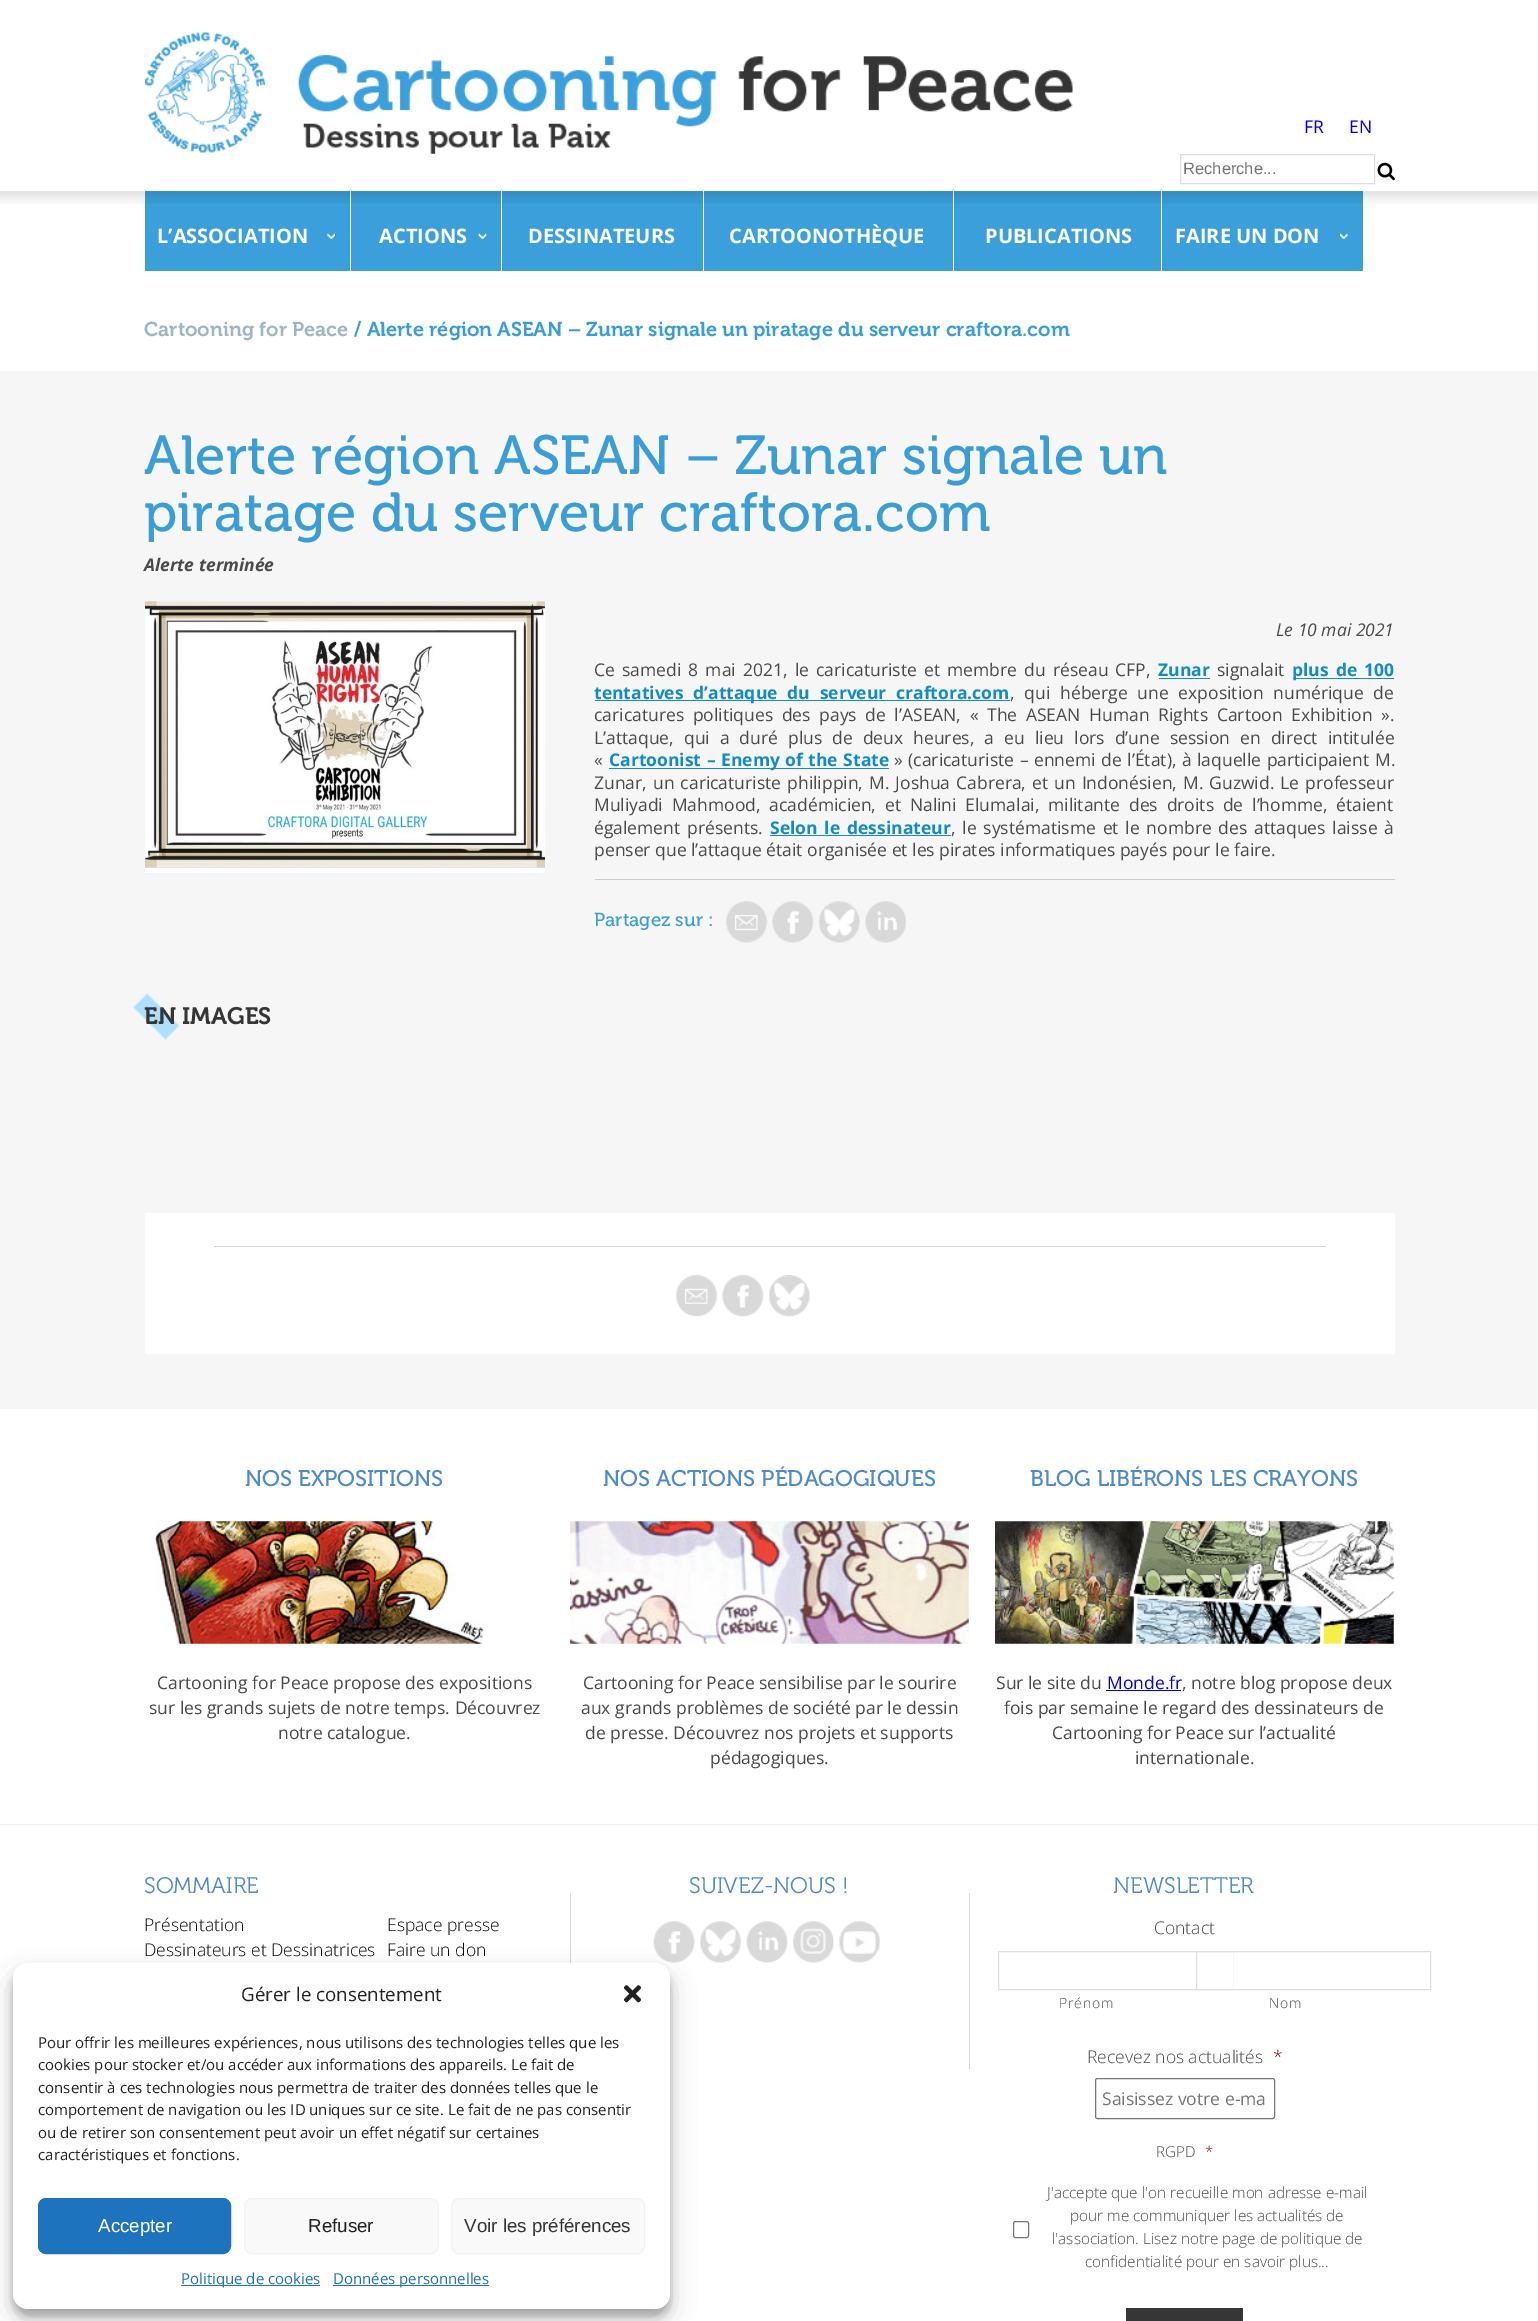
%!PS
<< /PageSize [1538 2321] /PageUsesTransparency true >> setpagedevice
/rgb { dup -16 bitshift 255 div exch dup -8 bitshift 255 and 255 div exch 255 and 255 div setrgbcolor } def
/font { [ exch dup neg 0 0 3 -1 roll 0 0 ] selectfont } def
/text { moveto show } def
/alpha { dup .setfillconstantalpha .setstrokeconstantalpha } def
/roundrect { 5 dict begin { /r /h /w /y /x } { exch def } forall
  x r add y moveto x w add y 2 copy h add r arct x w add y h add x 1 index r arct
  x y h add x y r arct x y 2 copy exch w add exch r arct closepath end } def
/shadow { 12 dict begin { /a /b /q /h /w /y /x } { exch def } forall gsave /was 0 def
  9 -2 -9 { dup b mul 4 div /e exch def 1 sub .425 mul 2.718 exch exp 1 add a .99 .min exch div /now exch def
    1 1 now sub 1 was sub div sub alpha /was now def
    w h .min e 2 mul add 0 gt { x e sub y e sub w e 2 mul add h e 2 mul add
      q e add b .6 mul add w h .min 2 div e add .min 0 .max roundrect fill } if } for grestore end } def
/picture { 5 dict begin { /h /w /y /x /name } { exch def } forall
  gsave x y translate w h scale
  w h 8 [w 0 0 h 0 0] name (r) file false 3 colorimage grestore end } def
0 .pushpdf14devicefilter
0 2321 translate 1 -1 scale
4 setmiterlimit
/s1 { /OpenSans-Regular 17.5 font 16#0000EE rgb } def
/s2 { /LiberationSans-Regular 16.5 font 16#757575 rgb } def
/s3 { /OpenSans-Bold 20 font 16#FFFFFF rgb } def
/s4 { /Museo-SemiBold 20 font 16#9DB6C3 rgb } def
/s5 { /Museo-SemiBold 20 font 16#399DD7 rgb } def
/s6 { /Museo-Regular 55 font 16#399DD7 rgb } def
/s7 { /OpenSans-BoldItalic 17.5 font 16#4B4A4B rgb } def
/s8 { /OpenSans-Italic 17.5 font 16#4B4A4B rgb } def
/s9 { /OpenSans-Bold 17.5 font 16#138BC7 rgb } def
/s10 { /OpenSans-Regular 17.5 font 16#4B4A4B rgb } def
/s11 { /Museo-Regular 18.75 font 16#399DD7 rgb } def
/s12 { /Museo-SemiBold 23.75 font 16#353535 rgb } def
/s13 { /Museo-Regular 22.5 font 16#4F8BCA rgb } def
/s14 { /Museo-Light 22.5 font 16#4F8BCA rgb } def
/s15 { /OpenSans-Light 17.5 font 16#0A0A0A rgb } def
/s16 { /OpenSans-Light 17.5 font 16#4B4A4B rgb } def
/s17 { /OpenSans-Light 17.5 font 16#790000 rgb } def
/s18 { /OpenSans-Regular 17.5 font 16#757575 rgb } def
/s19 { /OpenSans-Light 15 font 16#4B4A4B rgb } def
/s20 { /OpenSans-Light 15 font 16#790000 rgb } def
/s21 { /OpenSans-Light 15.3 font 16#4B4A4B rgb } def
/s22 { /OpenSans-Regular 18.75 font 16#222222 rgb } def
/s23 { /OpenSans-Regular 15 font 16#222222 rgb } def
/s24 { /LiberationSans-Regular 18.75 font 16#FFFFFF rgb } def
/s25 { /LiberationSans-Regular 18.75 font 16#222222 rgb } def
/s26 { /LiberationSans-Regular 18.75 font 16#353535 rgb } def
/s27 { /OpenSans-Regular 15 font 16#1E73BE rgb } def
16#FFFFFF rgb
0 0 1538 2321 rectfill
(pic1.raw) 145 32 928 122 picture
s1
(FR) 1304 133 text
(EN) 1349 133 text
16#DEDEDE rgb
1180.5 154.5 194 29 rectstroke
s2
(Recherche...) 1183 174 text
(pic2.raw) 1377 162 18 19 picture
16#3A9FDA rgb
145 191 205 80 rectfill
s3
(L’ASSOCIATION) 157 243 text
(pic3.raw) 327 233 8 6 picture
16#3A9FDA rgb
351 191 352 80 rectfill
16#FFFFFF rgb
501 191 1 80 rectfill
(ACTIONS) 379 243 text
(pic4.raw) 478 233 9 6 picture
(DESSINATEURS) 528 243 text
16#3A9FDA rgb
704 191 249 80 rectfill
s3
(CARTOONOTHÈQUE) 729 243 text
16#3A9FDA rgb
954 191 409 80 rectfill
16#FFFFFF rgb
1161 191 1 80 rectfill
(PUBLICATIONS) 985 243 text
(FAIRE UN DON) 1175 243 text
(pic5.raw) 1340 233 8 6 picture
(pic6.raw) 0 191 1538 13 picture
s4
(Cartooning for Peace) 144 336 text
s5
(/ Alerte région ASEAN – Zunar signale un piratage du serveur craftora.com) 354 336 text
16#F6F6F6 rgb
0 371 1538 1038 rectfill
s6
(Alerte région ASEAN – Zunar signale un) 144 474 text
(piratage du serveur craftora.com) 144 531 text
s7
(Alerte terminée) 144 571 text
16#FFFFFF rgb
145 601 400 272 rectfill
(pic7.raw) 145 601 400 267 picture
s8
(Le 10 mai 2021) 1276 636 text
/OpenSans-Regular 17.5 font
594 676 moveto 2.6 0 32 (Ce samedi 8 mai 2021, le caricaturiste et membre du réseau CFP,) widthshow
s9
(Zunar) 1158 676 text
1159 678 51 1 rectfill
s10
(signalait) 1217 676 text
16#138BC7 rgb
1293 678 101 1 rectfill
/OpenSans-Bold 17.5 font
1292 676 moveto 2.6 0 32 (plus de 100) widthshow
595 700 415 1 rectfill
594 699 moveto 5.25 0 32 (tentatives d’attaque du serveur craftora.com) widthshow
/OpenSans-Regular 17.5 font
16#4B4A4B rgb
1010 699 moveto 5.25 0 32 (, qui héberge une exposition numérique de) widthshow
594 721 moveto 4.1 0 32 (caricatures politiques des pays de l’ASEAN, « The ASEAN Human Rights Cartoon Exhibition ».) widthshow
594 744 moveto 5.5 0 32 (L’attaque, qui a duré plus de deux heures, a eu lieu lors d’une session en direct intitulée) widthshow
(«) 594 766 text
16#138BC7 rgb
609 768 280 1 rectfill
/OpenSans-Bold 17.5 font
609 766 moveto 1 0 32 (Cartoonist – Enemy of the State) widthshow
/OpenSans-Regular 17.5 font
16#4B4A4B rgb
894 766 moveto 1 0 32 (» \(caricaturiste – ennemi de l’État\), à laquelle participaient M.) widthshow
594 789 moveto 1.5 0 32 (Zunar, un caricaturiste philippin, M. Joshua Cabrera, et un Indonésien, M. Guzwid. Le professeur) widthshow
594 811 moveto 4.25 0 32 (Muliyadi Mahmood, académicien, et Nalini Elumalai, militante des droits de l’homme, étaient) widthshow
594 834 moveto 2.25 0 32 (également présents.) widthshow
/OpenSans-Bold 17.5 font
16#138BC7 rgb
770 834 moveto 2.25 0 32 (Selon le dessinateur) widthshow
770 835 181 1 rectfill
/OpenSans-Regular 17.5 font
16#4B4A4B rgb
951 834 moveto 2.25 0 32 (, le systématisme et le nombre des attaques laisse à) widthshow
(penser que l’attaque était organisée et les pirates informatiques payés pour le faire.) 594 856 text
16#C9CBCB rgb
595 879 800 1 rectfill
s11
(Partagez sur :) 594 926 text
(pic8.raw) 726 901 42 42 picture
(pic9.raw) 772 901 42 42 picture
(pic10.raw) 819 901 41 42 picture
(pic11.raw) 865 901 41 42 picture
(pic12.raw) 133 993 47 47 picture
s12
(EN IMAGES) 144 1024 text
16#FFFFFF rgb
145 1213 1250 141 rectfill
16#D6D6D6 rgb
214 1246 1112 1 rectfill
(pic13.raw) 676 1275 42 42 picture
(pic14.raw) 722 1275 42 42 picture
(pic15.raw) 769 1275 41 42 picture
s13
(NOS EXPOSITIONS) 245 1486 text
(pic16.raw) 155 1521 330 123 picture
s10
(Cartooning for Peace propose des expositions) 157 1689 text
(sur les grands sujets de notre temps. Découvrez) 149 1714 text
(notre catalogue.) 278 1739 text
s13
(NOS ACTIONS PÉDAGOGIQUES) 603 1486 text
(pic17.raw) 570 1521 399 123 picture
s10
(Cartooning for Peace sensibilise par le sourire) 583 1689 text
(aux grands problèmes de société par le dessin) 581 1714 text
(de presse. Découvrez nos projets et supports) 585 1739 text
(pédagogiques.) 710 1764 text
s13
(BLOG LIBÉRONS LES CRAYONS) 1030 1486 text
(pic18.raw) 995 1521 399 123 picture
s10
(Sur le site du) 996 1689 text
s1
(Monde.fr) 1107 1689 text
1106 1690 75 1 rectfill
s10
(, notre blog propose deux) 1182 1689 text
(fois par semaine le regard des dessinateurs de) 1004 1714 text
(Cartooning for Peace sur l’actualité) 1052 1739 text
(internationale.) 1135 1764 text
16#EDEBEB rgb
0 1824 1538 1 rectfill
s14
(SOMMAIRE) 144 1893 text
s15
(Présentation) 144 1931 text
(Dessinateurs et Dessinatrices) 144 1956 text
(Espace presse) 387 1931 text
(Faire un don) 387 1956 text
s14
(SUIVEZ-NOUS !) 689 1893 text
16#D9D9D9 rgb
570 1893 1 70 rectfill
(pic19.raw) 653 1921 42 42 picture
(pic20.raw) 700 1921 41 42 picture
(pic21.raw) 746 1921 42 42 picture
(pic22.raw) 793 1921 41 42 picture
(pic23.raw) 839 1921 41 42 picture
969 1893 1 176 rectfill
s14
(NEWSLETTER) 1113 1893 text
s16
(Contact) 1154 1934 text
16#DEDEDE rgb
998.5 1951.5 234 38 rectstroke
/OpenSans-Light 14 font
16#4B4A4B rgb
1059 2008 moveto 0.75 0 (Prénom) ashow
16#FFFFFF rgb
1232 1952 1 37 rectfill
16#DEDEDE rgb
1196.5 1951.5 234 38 rectstroke
16#4B4A4B rgb
1269 2008 moveto 0.75 0 (Nom) ashow
s16
(Recevez nos actualités) 1087 2063 text
s17
(*) 1273 2063 text
16#767676 rgb
1095.5 2078.5 179 40 2 roundrect stroke
s18
(Saisissez votre e-ma) 1102 2105 text
s19
(RGPD) 1156 2157 text
s20
(*) 1205 2157 text
16#767676 rgb
1013.5 2221.5 15 16 2 roundrect stroke
s21
(J'accepte que l'on recueille mon adresse e-mail) 1047 2198 text
(pour me communiquer les actualités de) 1070 2221 text
(l'association. Lisez notre page de politique de) 1052 2244 text
(confidentialité pour en savoir plus...) 1085 2267 text
16#363636 rgb
1126 2308 117 13 rectfill
16#000000 rgb
13 1970 657 346 15 4 0.23 shadow
13 1975 657 346 15 12.5 0.19 shadow
16#FFFFFF rgb
13 1963 657 346 15 roundrect fill
s22
(Gérer le consentement) 241 2001 text
(pic24.raw) 623 1985 19 18 picture
s23
(Pour offrir les meilleures expériences, nous utilisons des technologies telles que les) 38 2048 text
(cookies pour stocker et/ou accéder aux informations des appareils. Le fait de) 38 2070 text
(consentir à ces technologies nous permettra de traiter des données telles que le) 38 2093 text
(comportement de navigation ou les ID uniques sur ce site. Le fait de ne pas consentir) 38 2115 text
(ou de retirer son consentement peut avoir un effet négatif sur certaines) 38 2138 text
(caractéristiques et fonctions.) 38 2160 text
16#1E73BE rgb
38.5 2198.5 192 55 7.5 roundrect gsave fill grestore
stroke
s24
(Accepter) 98 2232 text
16#F9F9F9 rgb
244.5 2198.5 194 55 7.5 roundrect gsave fill grestore
16#F2F2F2 rgb
stroke
s25
(Refuser) 308 2232 text
16#F9F9F9 rgb
451.5 2198.5 193 55 7.5 roundrect gsave fill grestore
16#F2F2F2 rgb
stroke
s26
(Voir les préférences) 464 2232 text
16#1E73BE rgb
181 2285 139 1 rectfill
s27
(Politique de cookies) 181 2284 text
333 2285 156 1 rectfill
(Données personnelles) 333 2284 text
.poppdf14devicefilter showpage
